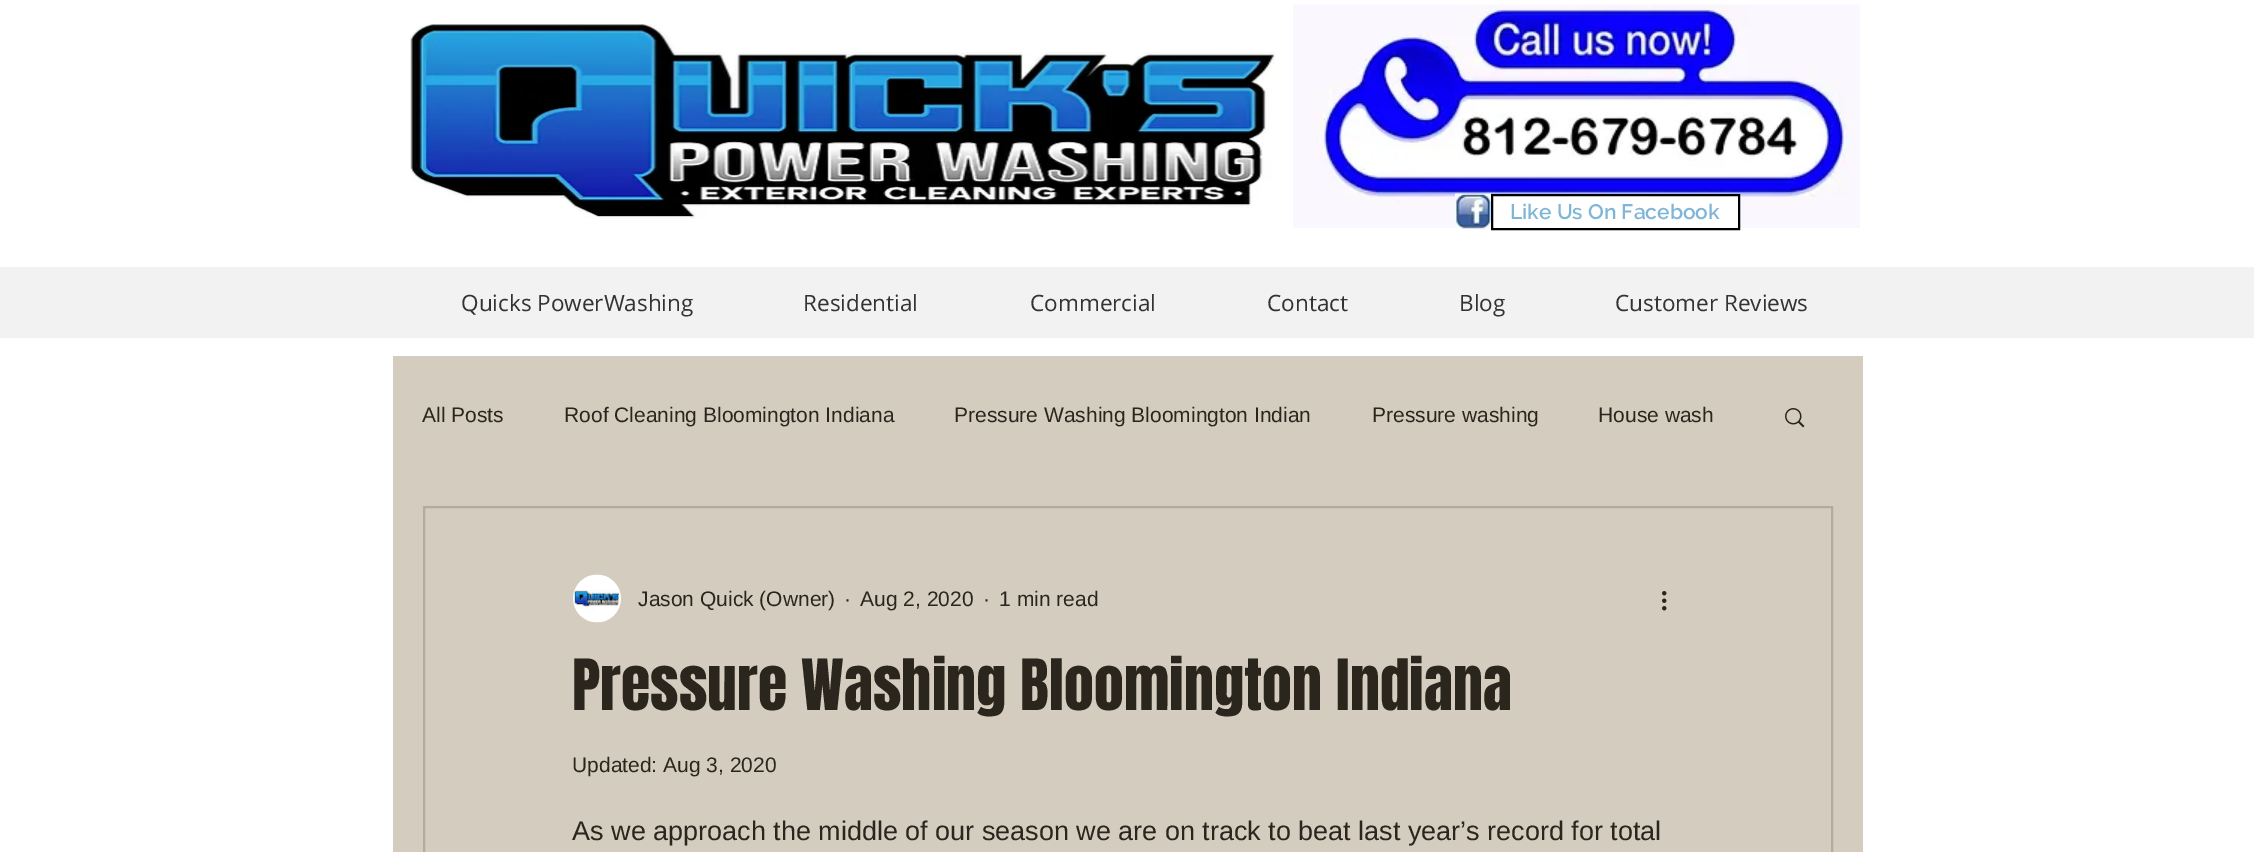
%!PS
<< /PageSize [2254 852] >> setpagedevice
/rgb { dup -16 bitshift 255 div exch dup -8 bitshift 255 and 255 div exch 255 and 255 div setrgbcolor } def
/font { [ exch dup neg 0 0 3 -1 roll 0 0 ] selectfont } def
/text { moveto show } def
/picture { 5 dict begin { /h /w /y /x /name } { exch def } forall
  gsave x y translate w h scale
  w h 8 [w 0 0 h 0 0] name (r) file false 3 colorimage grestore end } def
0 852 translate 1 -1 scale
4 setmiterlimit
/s1 { /Raleway-SemiBold 21 font 16#7FB6D8 rgb } def
/s2 { /OpenSans-Regular 22.5 font 16#333333 rgb } def
/s3 { /LiberationSans-Regular 21 font 16#2A261E rgb } def
/s4 { /Anton-Regular 60 font 16#2A261E rgb } def
/s5 { /LiberationSans-Regular 27 font 16#2A261E rgb } def
16#FFFFFF rgb
0 0 2254 852 rectfill
(pic1.raw) 410 24 865 195 picture
(pic2.raw) 1293 4 567 224 picture
(pic3.raw) 1455 193 36 37 picture
1492 195 moveto 1739 195 lineto 1739 229 lineto 1492 229 lineto closepath gsave fill grestore
16#000000 rgb
2 setlinewidth
stroke
s1
(Like Us On Facebook) 1510 219 text
16#F2F2F2 rgb
0 267 2254 71 rectfill
s2
(Quicks PowerWashing) 461 311 text
(Residential) 803 311 text
(Commercial) 1030 311 text
(Contact) 1267 311 text
(Blog) 1459 311 text
(Customer Reviews) 1615 311 text
16#D4CDBF rgb
393 356 1470 496 rectfill
s3
(All Posts) 422 422 text
(Roof Cleaning Bloomington Indiana) 564 422 text
(Pressure Washing Bloomington Indian) 954 422 text
(Pressure washing) 1372 422 text
(House wash) 1598 422 text
(pic4.raw) 1785 408 20 20 picture
16#B3AB9C rgb
424 507 1408 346 rectstroke
(pic5.raw) 573 574 48 49 picture
s3
(Jason Quick \(Owner\)) 638 606 text
(·) 844 606 text
(Aug 2, 2020) 860 606 text
(·) 983 606 text
(1 min read) 999 606 text
(pic6.raw) 1662 591 5 20 picture
s4
(Pressure Washing Bloomington Indiana) 572 710 text
s3
(Updated: Aug 3, 2020) 572 772 text
s5
(As we approach the middle of our season we are on track to beat last year’s record for total) 572 840 text
showpage
